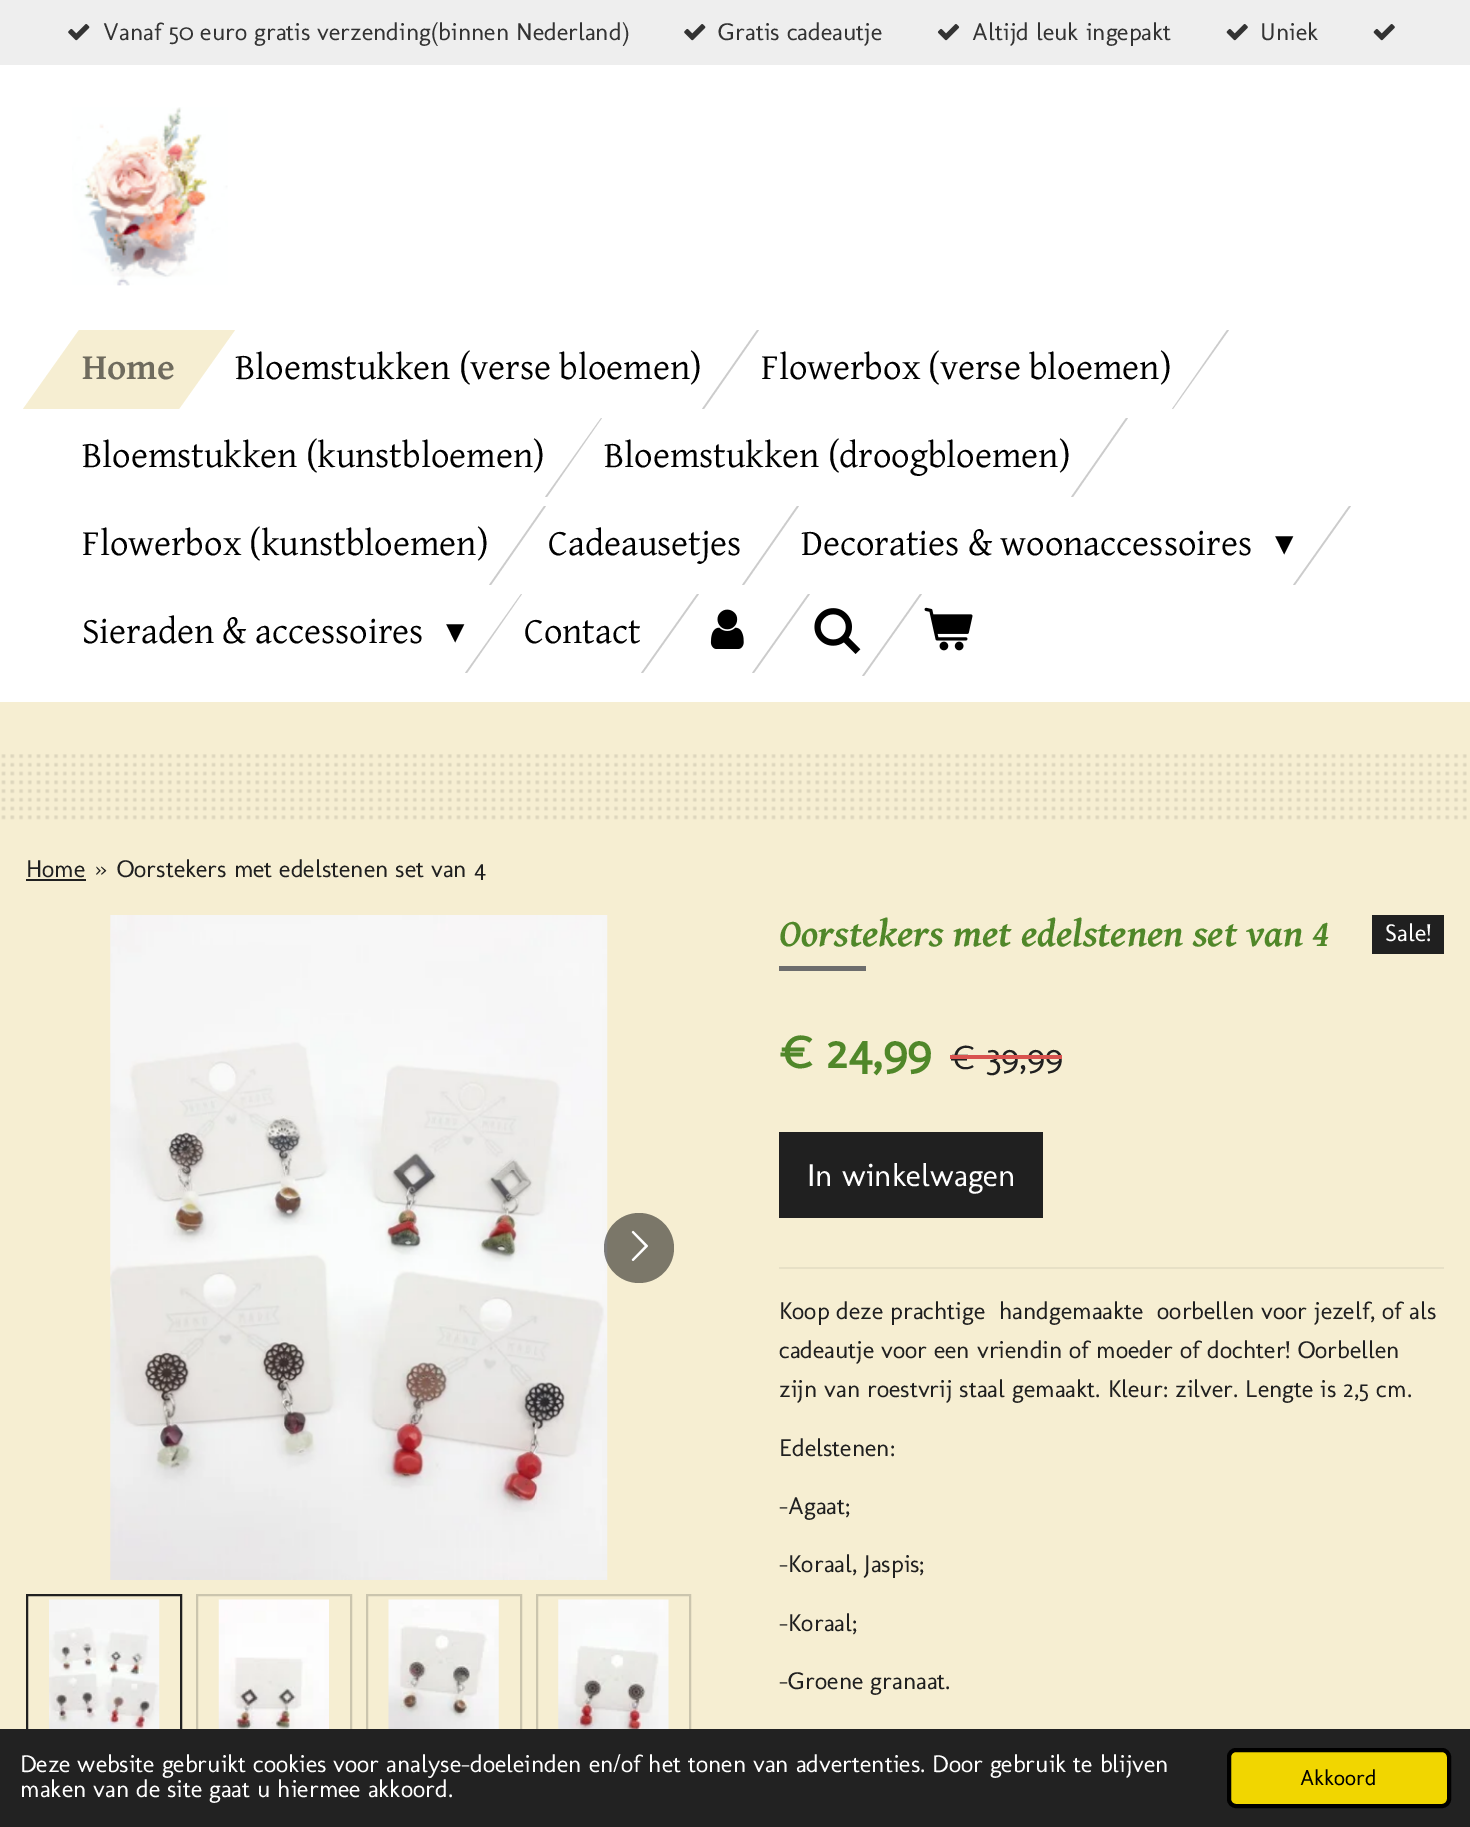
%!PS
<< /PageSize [1470 1827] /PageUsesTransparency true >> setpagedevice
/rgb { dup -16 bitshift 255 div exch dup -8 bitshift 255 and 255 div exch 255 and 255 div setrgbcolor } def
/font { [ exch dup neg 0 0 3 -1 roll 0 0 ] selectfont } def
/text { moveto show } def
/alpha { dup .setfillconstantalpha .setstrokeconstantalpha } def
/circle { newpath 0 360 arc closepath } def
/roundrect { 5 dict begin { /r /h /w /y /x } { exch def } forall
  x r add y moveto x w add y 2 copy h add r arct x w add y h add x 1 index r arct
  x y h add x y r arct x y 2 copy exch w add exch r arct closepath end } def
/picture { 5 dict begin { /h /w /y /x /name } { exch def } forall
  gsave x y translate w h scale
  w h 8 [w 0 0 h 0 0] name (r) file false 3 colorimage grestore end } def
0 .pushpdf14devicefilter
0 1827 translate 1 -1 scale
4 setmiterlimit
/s1 { /Molengo-Regular 24.5 font 16#333333 rgb } def
/s2 { /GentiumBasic-Bold 36.75 font 16#6F6B5E rgb } def
/s3 { /GentiumBasic-Regular 36.75 font 16#000000 rgb } def
/s4 { /DejaVuSans-Regular 36.75 font 16#000000 rgb } def
/s5 { /Molengo-Regular 24.5 font 16#202020 rgb } def
/s6 { /GentiumBasic-BoldItalic 38.5 font 16#508729 rgb } def
/s7 { /Molengo-Regular 24.5 font 16#FFFFFF rgb } def
/s8 { /Molengo-Bold 49 font 16#508729 rgb } def
/s9 { /Molengo-Regular 36.75 font 16#202020 rgb } def
/s10 { /Molengo-Regular 32 font 16#FFFFFF rgb } def
/s11 { /Molengo-Regular 22 font 16#000000 rgb } def
16#F6EED2 rgb
0 0 1470 1827 rectfill
16#EEEEEE rgb
0 0 1470 65 rectfill
(pic1.raw) 68 24 22 17 picture
s1
(Vanaf 50 euro gratis verzending\(binnen Nederland\)) 103 40 text
(pic1.raw) 684 24 22 17 picture
(Gratis cadeautje) 718 40 text
(pic2.raw) 937 24 23 17 picture
(Altijd leuk ingepakt) 972 40 text
(pic3.raw) 1226 24 22 17 picture
(Uniek) 1260 40 text
(pic3.raw) 1373 24 22 17 picture
16#FFFFFF rgb
0 65 1470 637 rectfill
(pic4.raw) 72 107 156 179 picture
16#F6EED2 rgb
79 330 moveto 235 330 lineto 179 409 lineto 23 409 lineto closepath fill
s2
(Home) 82 379 text
s3
(Bloemstukken \(verse bloemen\)) 235 379 text
16#CCCCCC rgb
757 330 moveto 759 330 lineto 704 409 lineto 702 409 lineto closepath fill
s3
(Flowerbox \(verse bloemen\)) 761 379 text
16#CCCCCC rgb
1227 330 moveto 1229 330 lineto 1173 409 lineto 1172 409 lineto closepath fill
s3
(Bloemstukken \(kunstbloemen\)) 82 467 text
16#CCCCCC rgb
601 418 moveto 602 418 lineto 547 497 lineto 545 497 lineto closepath fill
s3
(Bloemstukken \(droogbloemen\)) 604 467 text
16#CCCCCC rgb
1126 418 moveto 1128 418 lineto 1073 497 lineto 1071 497 lineto closepath fill
s3
(Flowerbox \(kunstbloemen\)) 82 555 text
16#CCCCCC rgb
544 506 moveto 546 506 lineto 491 585 lineto 489 585 lineto closepath fill
s3
(Cadeausetjes) 548 555 text
16#CCCCCC rgb
797 506 moveto 799 506 lineto 744 585 lineto 742 585 lineto closepath fill
s3
(Decoraties & woonaccessoires) 801 555 text
16#CCCCCC rgb
1349 506 moveto 1351 506 lineto 1295 585 lineto 1293 585 lineto closepath fill
s4
(▾) 1275 555 text
s3
(Sieraden & accessoires) 82 643 text
s4
(▾) 446 643 text
16#CCCCCC rgb
521 594 moveto 522 594 lineto 467 673 lineto 465 673 lineto closepath fill
s3
(Contact) 524 643 text
16#CCCCCC rgb
697 594 moveto 699 594 lineto 643 673 lineto 641 673 lineto closepath fill
(pic5.raw) 710 609 34 40 picture
808 594 moveto 810 594 lineto 754 673 lineto 752 673 lineto closepath fill
(pic6.raw) 814 608 47 46 picture
920 594 moveto 922 594 lineto 864 676 lineto 862 676 lineto closepath fill
(pic7.raw) 924 607 49 44 picture
(pic8.raw) 1 754 1466 66 picture
s5
(Home) 26 877 text
26 879 60 2 rectfill
(») 95 877 text
(Oorstekers met edelstenen set van 4) 117 877 text
(pic9.raw) 110 915 498 665 picture
0.5 alpha
16#000000 rgb
639 1248 35 circle fill
1 alpha
(pic10.raw) 631 1230 17 31 picture
16#202020 rgb
2 setlinewidth
27 1595 154 154 rectstroke
(pic11.raw) 49 1599 111 130 picture
16#CBC5AE rgb
197 1595 154 154 rectstroke
(pic12.raw) 218 1599 111 130 picture
367 1595 154 154 rectstroke
(pic13.raw) 388 1599 111 130 picture
537 1595 153 154 rectstroke
(pic14.raw) 558 1599 111 130 picture
s6
(Oorstekers met edelstenen set van 4) 779 946 text
16#6D6D6D rgb
779 966 87 5 rectfill
16#202020 rgb
1372 915 72 39 rectfill
s7
(Sale!) 1385 941 text
s8
(€ 24,99) 779 1068 text
s9
(€ 39,99) 950 1069 text
16#D9534F rgb
950 1055 112 4 rectfill
16#202020 rgb
779 1132 264 86 rectfill
s10
(In winkelwagen) 807 1186 text
16#E7E0C6 rgb
779 1267 665 2 rectfill
s5
(Koop deze prachtige  handgemaakte  oorbellen voor jezelf, of als) 779 1319 text
(cadeautje voor een vriendin of moeder of dochter! Oorbellen) 779 1358 text
(zijn van roestvrij staal gemaakt. Kleur: zilver. Lengte is 2,5 cm.) 779 1397 text
(Edelstenen:) 779 1456 text
(-Agaat;) 779 1514 text
(-Koraal, Jaspis;) 779 1572 text
(-Koraal;) 779 1631 text
(-Groene granaat.) 779 1689 text
16#222222 rgb
0 1729 1470 98 rectfill
s7
(Deze website gebruikt cookies voor analyse-doeleinden en/of het tonen van advertenties. Door gebruik te blijven) 20 1772 text
(maken van de site gaat u hiermee akkoord.) 20 1797 text
16#F1D600 rgb
1229 1750 220 56 7 roundrect gsave fill grestore
16#000000 rgb
4 setlinewidth
stroke
s11
(Akkoord) 1300 1785 text
.poppdf14devicefilter showpage
